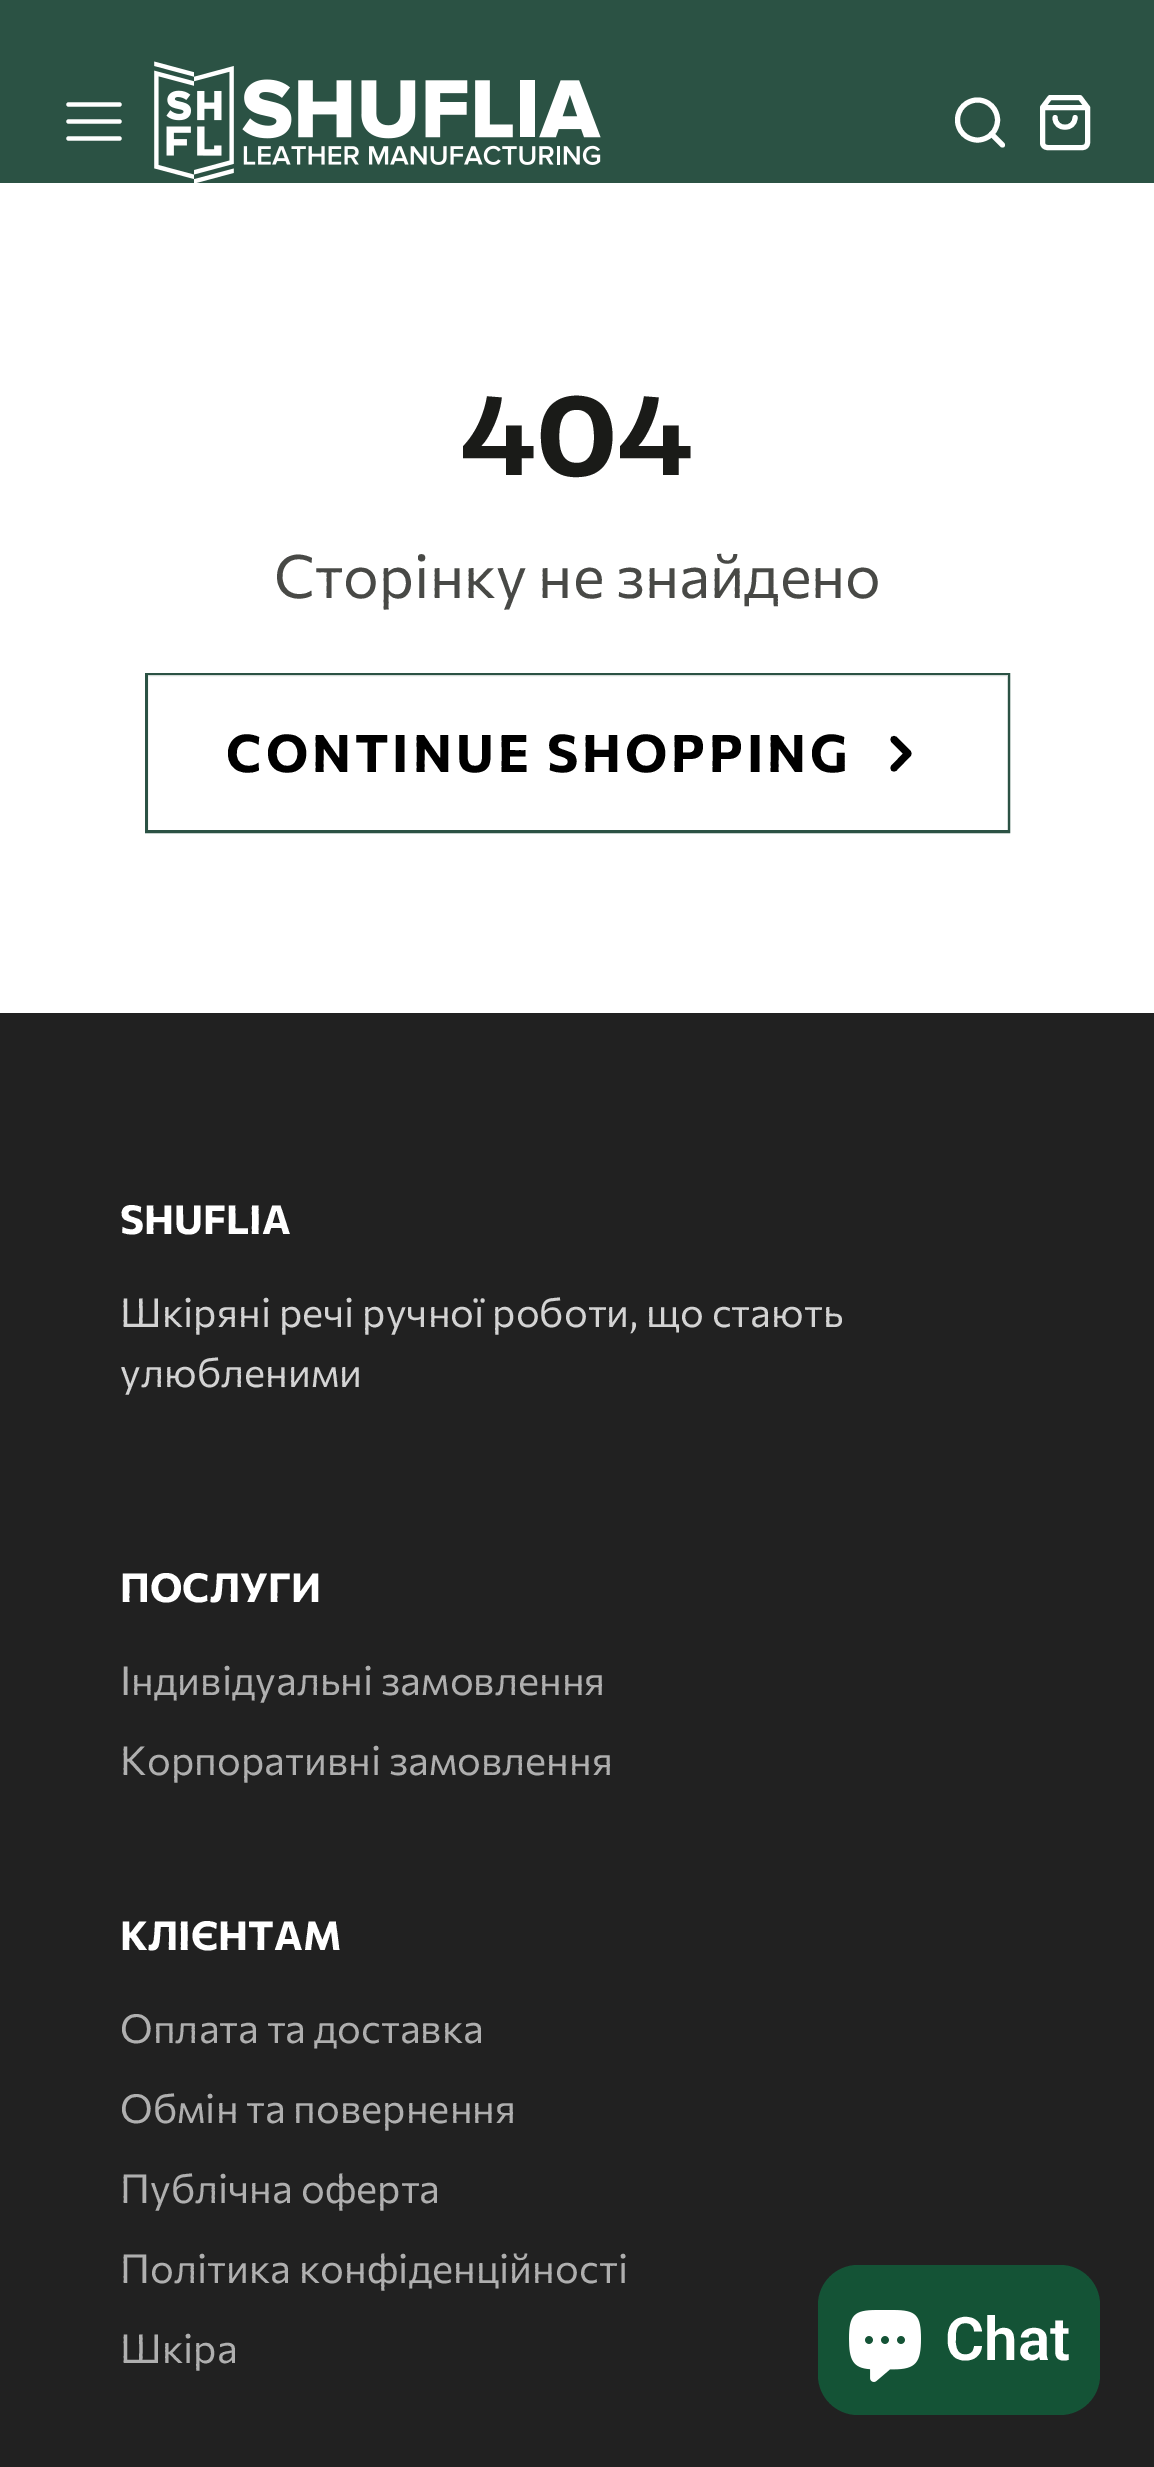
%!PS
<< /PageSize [1154 2467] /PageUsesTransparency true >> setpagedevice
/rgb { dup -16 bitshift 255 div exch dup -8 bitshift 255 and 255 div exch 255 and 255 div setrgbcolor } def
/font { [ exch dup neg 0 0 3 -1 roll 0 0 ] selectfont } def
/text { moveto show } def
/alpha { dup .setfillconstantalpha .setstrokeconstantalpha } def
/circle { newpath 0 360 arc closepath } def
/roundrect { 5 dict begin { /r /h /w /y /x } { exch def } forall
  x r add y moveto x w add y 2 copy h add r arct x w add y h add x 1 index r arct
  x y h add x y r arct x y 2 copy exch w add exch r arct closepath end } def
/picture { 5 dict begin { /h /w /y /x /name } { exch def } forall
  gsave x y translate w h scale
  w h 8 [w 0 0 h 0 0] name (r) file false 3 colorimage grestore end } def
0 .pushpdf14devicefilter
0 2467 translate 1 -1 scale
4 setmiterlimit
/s1 { /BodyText-Bold 115 font 16#1A1B18 rgb } def
/s2 { /Commissioner-Regular 60 font 16#484946 rgb } def
/s3 { /Commissioner-Bold 40 font 16#FFFFFF rgb } def
/s4 { /Commissioner-Regular 40 font 16#D3D3D3 rgb } def
/s5 { /Commissioner-Regular 40 font 16#AFAFAF rgb } def
/s6 { /Roboto-SemiBold 60 font 16#FFFFFF rgb } def
16#FFFFFF rgb
0 0 1154 2467 rectfill
16#2B5244 rgb
0 0 1154 183 rectfill
16#FFFFFF rgb
4.2 setlinewidth
1 setlinecap
1 setlinejoin
68.5 121.5 moveto 119.5 121.5 lineto 68.5 104.5 moveto 119.5 104.5 lineto 68.5 138.5 moveto 119.5 138.5 lineto stroke
(pic1.raw) 154 61 447 122 picture
5 setlinewidth
0 setlinecap
0 setlinejoin
977.5 120 20 circle stroke
1 setlinecap
1 setlinejoin
1002.5 145 moveto 991.5 134 lineto stroke
1050 97.5 moveto 1042.5 107.5 lineto 1042.5 142.5 lineto 1042.5 145.5 1044.5 147.5 1047.5 147.5 curveto 1082.5 147.5 lineto 1085.5 147.5 1087.5 145.5 1087.5 142.5 curveto 1087.5 107.5 lineto 1080 97.5 lineto closepath 1042.5 107.5 moveto 1087.5 107.5 lineto 1075 117.5 moveto 1075 130.5 1055 130.5 1055 117.5 curveto stroke
s1
(404) 461 475 text
s2
(Сторінку не знайдено) 274 598 text
16#2B5244 rgb
3 setlinewidth
0 setlinecap
0 setlinejoin
146.5 674.5 862 157 rectstroke
0.8 alpha
16#FFFFFF rgb
148 675 860 155 rectfill
/Commissioner-Bold 52 font
1 alpha
16#000000 rgb
226 772 moveto 4 0 (CONTINUE SHOPPING) ashow
7.1 setlinewidth
1 setlinecap
1 setlinejoin
894 768 moveto 908 753.5 lineto 894 739.5 lineto stroke
16#212121 rgb
0 1013 1154 1454 rectfill
s3
(SHUFLIA) 120 1234 text
s4
(Шкіряні речі ручної роботи, що стають) 120 1327 text
(улюбленими) 120 1387 text
s3
(ПОСЛУГИ) 120 1602 text
s5
(Індивідуальні замовлення) 120 1695 text
(Корпоративні замовлення) 120 1775 text
s3
(КЛІЄНТАМ) 120 1950 text
s5
(Оплата та доставка) 120 2043 text
(Обмін та повернення) 120 2123 text
(Публічна оферта) 120 2203 text
(Політика конфіденційності) 120 2283 text
(Шкіра) 120 2363 text
16#145336 rgb
818 2265 282 150 40 roundrect fill
(pic2.raw) 849 2310 72 72 picture
s6
(Chat) 945 2360 text
.poppdf14devicefilter showpage
